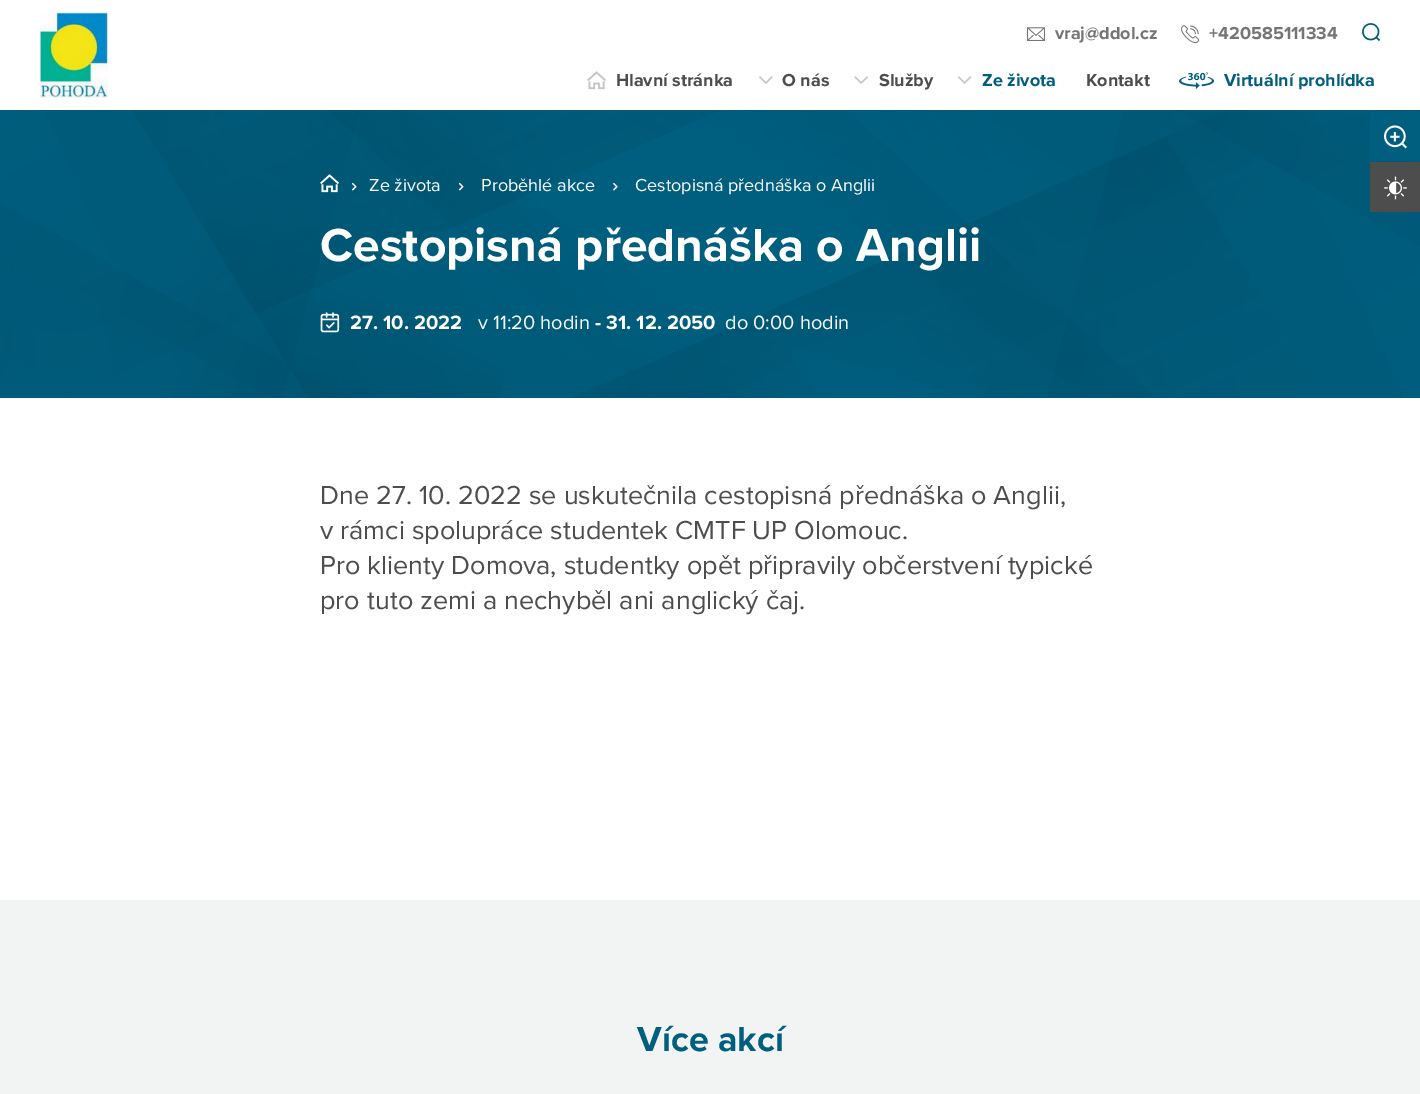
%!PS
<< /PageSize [1420 1094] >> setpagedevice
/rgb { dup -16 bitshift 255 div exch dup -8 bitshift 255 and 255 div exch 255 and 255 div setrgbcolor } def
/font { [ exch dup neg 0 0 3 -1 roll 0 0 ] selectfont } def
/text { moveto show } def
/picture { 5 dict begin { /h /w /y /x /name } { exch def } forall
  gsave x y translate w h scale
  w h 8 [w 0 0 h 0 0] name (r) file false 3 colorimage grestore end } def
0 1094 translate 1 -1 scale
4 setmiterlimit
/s1 { /ProximaNova-Bold 18 font 16#757575 rgb } def
/s2 { /ProximaNova-Bold 18 font 16#4D4D4D rgb } def
/s3 { /ProximaNova-Bold 18 font 16#005E7E rgb } def
/s4 { /ProximaNova-Regular 18 font 16#FFFFFF rgb } def
/s5 { /ProximaNova-Bold 48 font 16#FFFFFF rgb } def
/s6 { /ProximaNova-Bold 20 font 16#FFFFFF rgb } def
/s7 { /ProximaNova-Regular 20 font 16#FFFFFF rgb } def
/s8 { /ProximaNova-Regular 27 font 16#4D4D4D rgb } def
/s9 { /ProximaNova-Bold 36 font 16#005E7E rgb } def
16#FFFFFF rgb
0 0 1420 1094 rectfill
(pic1.raw) 40 12 68 86 picture
(pic2.raw) 1027 27 18 14 picture
s1
(vraj@ddol.cz) 1055 39 text
(pic3.raw) 1181 25 19 19 picture
(+420585111334) 1209 39 text
(pic4.raw) 1362 23 19 18 picture
(pic5.raw) 587 71 19 19 picture
s2
(Hlavní stránka) 616 86 text
(pic6.raw) 759 76 14 8 picture
(O nás) 782 86 text
(pic7.raw) 854 76 14 8 picture
(Služby) 879 86 text
(pic8.raw) 957 76 15 8 picture
s3
(Ze života) 982 86 text
s2
(Kontakt) 1086 86 text
(pic9.raw) 1179 72 35 17 picture
s3
(Virtuální prohlídka) 1224 86 text
0 110 1420 288 rectfill
(pic12.raw) 0 110 1420 288 picture
1370 111 50 50 rectfill
(pic10.raw) 1384 125 23 24 picture
16#4D4D4D rgb
1370 162 50 50 rectfill
(pic11.raw) 1384 176 23 24 picture
(pic13.raw) 320 174 19 19 picture
(pic14.raw) 352 183 5 8 picture
s4
(Ze života) 369 191 text
(pic15.raw) 458 182 6 9 picture
(Proběhlé akce) 481 191 text
(pic16.raw) 613 183 5 8 picture
(Cestopisná přednáška o Anglii) 635 191 text
s5
(Cestopisná přednáška o Anglii) 320 261 text
(pic17.raw) 320 312 20 21 picture
s6
(27. 10. 2022) 350 329 text
s7
(v 11:20 hodin) 478 329 text
s6
(- 31. 12. 2050) 595 329 text
s7
(do 0:00 hodin) 725 329 text
s8
(Dne 27. 10. 2022 se uskutečnila cestopisná přednáška o Anglii,) 320 504 text
(v rámci spolupráce studentek CMTF UP Olomouc.) 320 539 text
(Pro klienty Domova, studentky opět připravily občerstvení typické) 320 574 text
(pro tuto zemi a nechyběl ani anglický čaj.) 320 609 text
16#F2F3F3 rgb
0 900 1420 194 rectfill
s9
(Více akcí) 637 1051 text
showpage
